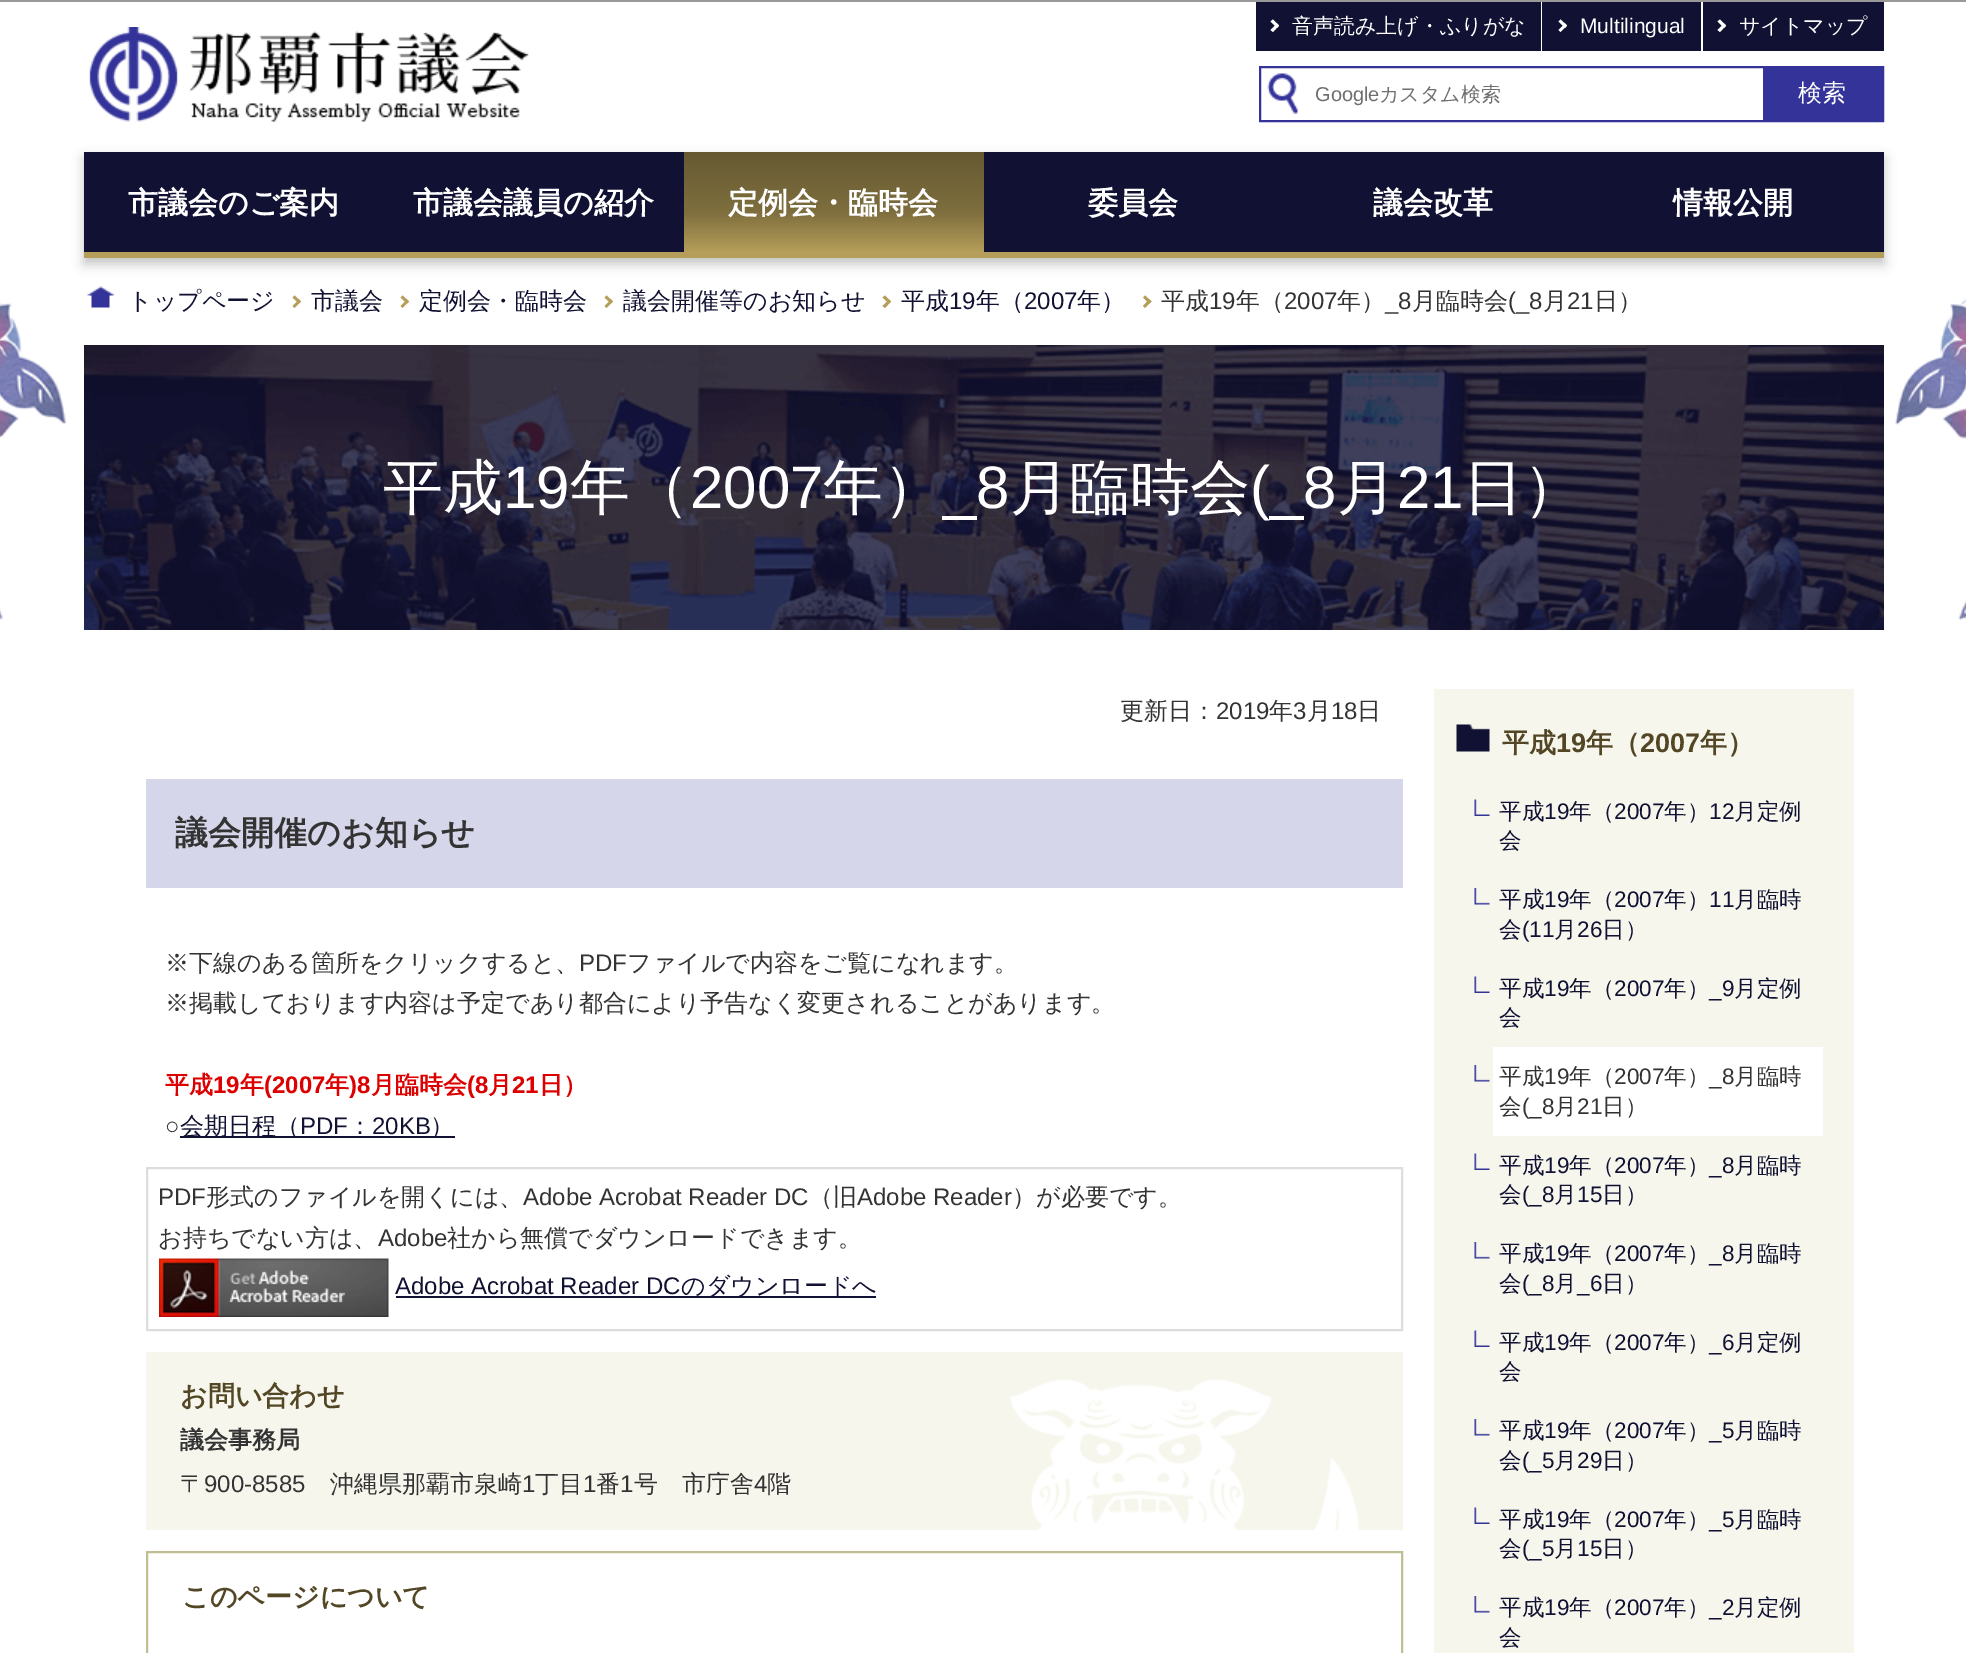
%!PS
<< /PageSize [1966 1653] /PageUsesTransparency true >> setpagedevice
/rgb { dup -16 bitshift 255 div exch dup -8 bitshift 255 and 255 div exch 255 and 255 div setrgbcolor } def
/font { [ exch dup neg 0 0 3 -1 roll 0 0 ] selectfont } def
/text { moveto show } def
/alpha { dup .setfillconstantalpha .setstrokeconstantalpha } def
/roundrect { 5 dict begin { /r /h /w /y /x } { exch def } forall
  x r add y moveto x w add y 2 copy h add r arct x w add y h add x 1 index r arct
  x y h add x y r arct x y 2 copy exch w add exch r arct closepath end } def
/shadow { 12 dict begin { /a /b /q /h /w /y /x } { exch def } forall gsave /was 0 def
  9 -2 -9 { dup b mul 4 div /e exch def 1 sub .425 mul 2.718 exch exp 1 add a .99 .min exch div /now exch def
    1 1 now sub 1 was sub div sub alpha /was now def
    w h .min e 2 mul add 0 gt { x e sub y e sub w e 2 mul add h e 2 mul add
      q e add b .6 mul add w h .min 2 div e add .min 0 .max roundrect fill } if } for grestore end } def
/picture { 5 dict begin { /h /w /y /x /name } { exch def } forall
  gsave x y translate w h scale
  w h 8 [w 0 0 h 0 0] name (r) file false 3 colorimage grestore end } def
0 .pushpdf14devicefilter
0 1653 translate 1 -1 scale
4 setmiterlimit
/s1 { /WenQuanYiZenHei-Medium 21 font 16#FFFFFF rgb } def
/s2 { /LiberationSans-Regular 21 font 16#FFFFFF rgb } def
/s3 { /LiberationSans-Regular 20 font 16#6F6F6F rgb } def
/s4 { /WenQuanYiZenHei-Medium 20 font 16#6F6F6F rgb } def
/s5 { /WenQuanYiZenHei-Medium 24 font 16#FFFFFF rgb } def
/s6 { /WenQuanYiZenHei-Bold 30 font 16#FFFFFF rgb } def
/s7 { /WenQuanYiZenHei-Medium 24 font 16#111133 rgb } def
/s8 { /LiberationSans-Regular 24 font 16#111133 rgb } def
/s9 { /WenQuanYiZenHei-Medium 24 font 16#333333 rgb } def
/s10 { /LiberationSans-Regular 24 font 16#333333 rgb } def
/s11 { /WenQuanYiZenHei-Medium 60 font 16#FFFFFF rgb } def
/s12 { /LiberationSans-Regular 60 font 16#FFFFFF rgb } def
/s13 { /WenQuanYiZenHei-Bold 33 font 16#333333 rgb } def
/s14 { /WenQuanYiZenHei-Bold 24 font 16#DD0000 rgb } def
/s15 { /LiberationSans-Bold 24 font 16#DD0000 rgb } def
/s16 { /WenQuanYiZenHei-Bold 27 font 16#524625 rgb } def
/s17 { /WenQuanYiZenHei-Bold 24 font 16#333333 rgb } def
/s18 { /LiberationSans-Bold 27 font 16#524625 rgb } def
/s19 { /WenQuanYiZenHei-Medium 22.5 font 16#111133 rgb } def
/s20 { /LiberationSans-Regular 22.5 font 16#111133 rgb } def
/s21 { /WenQuanYiZenHei-Medium 22.5 font 16#333333 rgb } def
/s22 { /LiberationSans-Regular 22.5 font 16#333333 rgb } def
16#FFFFFF rgb
0 0 1966 1653 rectfill
(pic1.raw) 0 298 1966 322 picture
16#999999 rgb
0 0 1966 2 rectfill
(pic2.raw) 89 27 440 95 picture
16#111133 rgb
1256 2 285 49 rectfill
16#FFFFFF rgb
1273 19.5 moveto 1279 25.5 lineto 1277 28 lineto 1270.5 21.5 lineto closepath fill
1277 23.5 moveto 1279 25.5 lineto 1273 32 lineto 1270.5 30 lineto closepath fill
s1
(音声読み上げ・ふりがな) 1292 33 text
16#111133 rgb
1542 2 159 49 rectfill
16#FFFFFF rgb
1560.5 19.5 moveto 1567 25.5 lineto 1565 28 lineto 1558.5 21.5 lineto closepath fill
1565 23.5 moveto 1567 25.5 lineto 1560.5 32 lineto 1558.5 30 lineto closepath fill
s2
(Multilingual) 1580 33 text
16#111133 rgb
1703 2 181 49 rectfill
16#FFFFFF rgb
1720 19.5 moveto 1726 25.5 lineto 1724 28 lineto 1717.5 21.5 lineto closepath fill
1724 23.5 moveto 1726 25.5 lineto 1720 32 lineto 1717.5 30 lineto closepath fill
s1
(サイトマップ) 1739 33 text
(pic3.raw) 1267 73 31 41 picture
16#333399 rgb
2 setlinewidth
1260 67 623 54 rectstroke
gsave
1316 81 444 27 rectclip
s3
(Google) 1315 101 text
grestore
s4
(カスタム検索) 1379 101 text
16#333399 rgb
1763 68 119 52 rectfill
s5
(検索) 1798 101 text
16#666666 rgb
84 158 1800 106 0 6 0.4 shadow
16#B59E59 rgb
84 252 1800 6 rectfill
16#111133 rgb
84 152 600 100 rectfill
s6
(市議会のご案内) 128 213 text
(市議会議員の紹介) 413 213 text
gsave 684 152 moveto 984 152 lineto 984 252 lineto 684 252 lineto closepath clip newpath
<< /ShadingType 2 /ColorSpace /DeviceRGB /Coords [834 151 834 252] /Extend [true true] /Function << /FunctionType 3 /Domain [0 1] /Functions [<< /FunctionType 2 /Domain [0 1] /C0 [0.4 0.349 0.196] /C1 [0.494 0.431 0.243] /N 1 >> << /FunctionType 2 /Domain [0 1] /C0 [0.494 0.431 0.243] /C1 [0.71 0.62 0.349] /N 1 >>] /Bounds [0.6] /Encode [0 1 0 1] >> >> shfill grestore
(定例会・臨時会) 728 213 text
16#111133 rgb
984 152 900 100 rectfill
s6
(委員会) 1088 213 text
(議会改革) 1373 213 text
(情報公開) 1673 213 text
(pic4.raw) 87 286 27 22 picture
s7
(トップページ) 128 309 text
16#B59E59 rgb
294.5 295.5 moveto 301 301.5 lineto 299 303.5 lineto 292.5 297.5 lineto closepath fill
299 299.5 moveto 301 301.5 lineto 294.5 308 lineto 292.5 306 lineto closepath fill
s7
(市議会) 311 309 text
16#B59E59 rgb
402.5 295.5 moveto 409 301.5 lineto 407 303.5 lineto 400.5 297.5 lineto closepath fill
407 299.5 moveto 409 301.5 lineto 402.5 308 lineto 400.5 306 lineto closepath fill
s7
(定例会・臨時会) 419 309 text
16#B59E59 rgb
606.5 295.5 moveto 613 301.5 lineto 611 303.5 lineto 604.5 297.5 lineto closepath fill
611 299.5 moveto 613 301.5 lineto 606.5 308 lineto 604.5 306 lineto closepath fill
s7
(議会開催等のお知らせ) 623 309 text
16#B59E59 rgb
885 295.5 moveto 891 301.5 lineto 889 303.5 lineto 882.5 297.5 lineto closepath fill
889 299.5 moveto 891 301.5 lineto 885 308 lineto 882.5 306 lineto closepath fill
s7
(平成) 901 309 text
s8
(19) 949 309 text
s7
(年（) 976 309 text
s8
(2007) 1024 309 text
s7
(年）) 1077 309 text
16#B59E59 rgb
1145 295.5 moveto 1151.5 301.5 lineto 1149 303.5 lineto 1143 297.5 lineto closepath fill
1149 299.5 moveto 1151.5 301.5 lineto 1145 308 lineto 1143 306 lineto closepath fill
s9
(平成) 1161 309 text
s10
(19) 1209 309 text
s9
(年（) 1236 309 text
s10
(2007) 1284 309 text
s9
(年）) 1337 309 text
s10
(_8) 1385 309 text
s9
(月臨時会) 1412 309 text
s10
(\(_8) 1508 309 text
s9
(月) 1543 309 text
s10
(21) 1567 309 text
s9
(日）) 1594 309 text
(pic5.raw) 84 345 1800 285 picture
s11
(平成) 383 508 text
s12
(19) 503 508 text
s11
(年（) 570 508 text
s12
(2007) 690 508 text
s11
(年）) 823 508 text
s12
(_8) 943 508 text
s11
(月臨時会) 1010 508 text
s12
(\(_8) 1250 508 text
s11
(月) 1337 508 text
s12
(21) 1397 508 text
s11
(日）) 1463 508 text
s9
(更新日：) 1120 719 text
s10
(2019) 1216 719 text
s9
(年) 1269 719 text
s10
(3) 1293 719 text
s9
(月) 1307 719 text
s10
(18) 1331 719 text
s9
(日) 1357 719 text
16#D6D6EA rgb
146 779 1257 109 rectfill
s13
(議会開催のお知らせ) 175 844 text
s9
(※下線のある箇所をクリックすると、) 165 971 text
s10
(PDF) 579 971 text
s9
(ファイルで内容をご覧になれます。) 627 971 text
(※掲載しております内容は予定であり都合により予告なく変更されることがあります。) 165 1011 text
s14
(平成) 165 1093 text
s15
(19) 213 1093 text
s14
(年) 240 1093 text
s15
(\(2007) 264 1093 text
s14
(年) 325 1093 text
s15
(\)8) 349 1093 text
s14
(月臨時会) 371 1093 text
s15
(\(8) 467 1093 text
s14
(月) 488 1093 text
s15
(21) 512 1093 text
s14
(日）) 539 1093 text
s10
(○) 165 1134 text
16#111133 rgb
180 1136 275 2 rectfill
s7
(会期日程（) 180 1134 text
s8
(PDF) 300 1134 text
s7
(：) 348 1134 text
s8
(20KB) 372 1134 text
s7
(）) 430 1134 text
16#DDDDDD rgb
147 1168 1255 162 rectstroke
s10
(PDF) 158 1205 text
s9
(形式のファイルを開くには、) 206 1205 text
s10
(Adobe Acrobat Reader DC) 523 1205 text
s9
(（旧) 809 1205 text
s10
(Adobe Reader) 857 1205 text
s9
(）が必要です。) 1012 1205 text
(お持ちでない方は、) 158 1246 text
s10
(Adobe) 378 1246 text
s9
(社から無償でダウンロードできます。) 447 1246 text
(pic6.raw) 159 1258 230 59 picture
s8
(Adobe Acrobat Reader DC) 395 1294 text
396 1296 480 2 rectfill
s7
(のダウンロードへ) 681 1294 text
16#F6F6ED rgb
146 1352 1257 178 rectfill
(pic7.raw) 1010 1379 349 151 picture
s16
(お問い合わせ) 180 1405 text
s17
(議会事務局) 180 1448 text
s9
(〒) 180 1492 text
s10
(900-8585) 204 1492 text
s9
(沖縄県那覇市泉崎) 330 1492 text
s10
(1) 522 1492 text
s9
(丁目) 535 1492 text
s10
(1) 583 1492 text
s9
(番) 596 1492 text
s10
(1) 620 1492 text
s9
(号　市庁舎) 634 1492 text
s10
(4) 754 1492 text
s9
(階) 767 1492 text
16#BFBF93 rgb
147 1552 1255 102 rectstroke
s16
(このページについて) 182 1606 text
16#F6F6ED rgb
1434 689 420 964 rectfill
(pic8.raw) 1456 724 34 28 picture
s16
(平成) 1502 752 text
s18
(19) 1556 752 text
s16
(年（) 1586 752 text
s18
(2007) 1640 752 text
s16
(年）) 1700 752 text
(pic9.raw) 1474 799 16 17 picture
s19
(平成) 1499 819 text
s20
(19) 1544 819 text
s19
(年（) 1569 819 text
s20
(2007) 1614 819 text
s19
(年）) 1664 819 text
s20
(12) 1709 819 text
s19
(月定例) 1734 819 text
(会) 1499 848 text
(pic10.raw) 1474 888 16 17 picture
(平成) 1499 907 text
s20
(19) 1544 907 text
s19
(年（) 1569 907 text
s20
(2007) 1614 907 text
s19
(年）) 1664 907 text
s20
(11) 1709 907 text
s19
(月臨時) 1734 907 text
(会) 1499 937 text
s20
(\(11) 1522 937 text
s19
(月) 1554 937 text
s20
(26) 1577 937 text
s19
(日）) 1602 937 text
(pic9.raw) 1474 976 16 17 picture
(平成) 1499 996 text
s20
(19) 1544 996 text
s19
(年（) 1569 996 text
s20
(2007) 1614 996 text
s19
(年）) 1664 996 text
s20
(_9) 1709 996 text
s19
(月定例) 1734 996 text
(会) 1499 1025 text
(pic10.raw) 1474 1065 16 17 picture
16#FFFFFF rgb
1493 1047 330 89 rectfill
s21
(平成) 1499 1084 text
s22
(19) 1544 1084 text
s21
(年（) 1569 1084 text
s22
(2007) 1614 1084 text
s21
(年）) 1664 1084 text
s22
(_8) 1709 1084 text
s21
(月臨時) 1734 1084 text
(会) 1499 1114 text
s22
(\(_8) 1522 1114 text
s21
(月) 1554 1114 text
s22
(21) 1577 1114 text
s21
(日）) 1602 1114 text
(pic9.raw) 1474 1153 16 17 picture
s19
(平成) 1499 1173 text
s20
(19) 1544 1173 text
s19
(年（) 1569 1173 text
s20
(2007) 1614 1173 text
s19
(年）) 1664 1173 text
s20
(_8) 1709 1173 text
s19
(月臨時) 1734 1173 text
(会) 1499 1202 text
s20
(\(_8) 1522 1202 text
s19
(月) 1554 1202 text
s20
(15) 1577 1202 text
s19
(日）) 1602 1202 text
(pic10.raw) 1474 1242 16 17 picture
(平成) 1499 1261 text
s20
(19) 1544 1261 text
s19
(年（) 1569 1261 text
s20
(2007) 1614 1261 text
s19
(年）) 1664 1261 text
s20
(_8) 1709 1261 text
s19
(月臨時) 1734 1261 text
(会) 1499 1291 text
s20
(\(_8) 1522 1291 text
s19
(月) 1554 1291 text
s20
(_6) 1577 1291 text
s19
(日）) 1602 1291 text
(pic9.raw) 1474 1330 16 17 picture
(平成) 1499 1350 text
s20
(19) 1544 1350 text
s19
(年（) 1569 1350 text
s20
(2007) 1614 1350 text
s19
(年）) 1664 1350 text
s20
(_6) 1709 1350 text
s19
(月定例) 1734 1350 text
(会) 1499 1379 text
(pic10.raw) 1474 1419 16 17 picture
(平成) 1499 1438 text
s20
(19) 1544 1438 text
s19
(年（) 1569 1438 text
s20
(2007) 1614 1438 text
s19
(年）) 1664 1438 text
s20
(_5) 1709 1438 text
s19
(月臨時) 1734 1438 text
(会) 1499 1468 text
s20
(\(_5) 1522 1468 text
s19
(月) 1554 1468 text
s20
(29) 1577 1468 text
s19
(日）) 1602 1468 text
(pic9.raw) 1474 1507 16 17 picture
(平成) 1499 1527 text
s20
(19) 1544 1527 text
s19
(年（) 1569 1527 text
s20
(2007) 1614 1527 text
s19
(年）) 1664 1527 text
s20
(_5) 1709 1527 text
s19
(月臨時) 1734 1527 text
(会) 1499 1556 text
s20
(\(_5) 1522 1556 text
s19
(月) 1554 1556 text
s20
(15) 1577 1556 text
s19
(日）) 1602 1556 text
(pic10.raw) 1474 1596 16 17 picture
(平成) 1499 1615 text
s20
(19) 1544 1615 text
s19
(年（) 1569 1615 text
s20
(2007) 1614 1615 text
s19
(年）) 1664 1615 text
s20
(_2) 1709 1615 text
s19
(月定例) 1734 1615 text
(会) 1499 1645 text
.poppdf14devicefilter showpage
